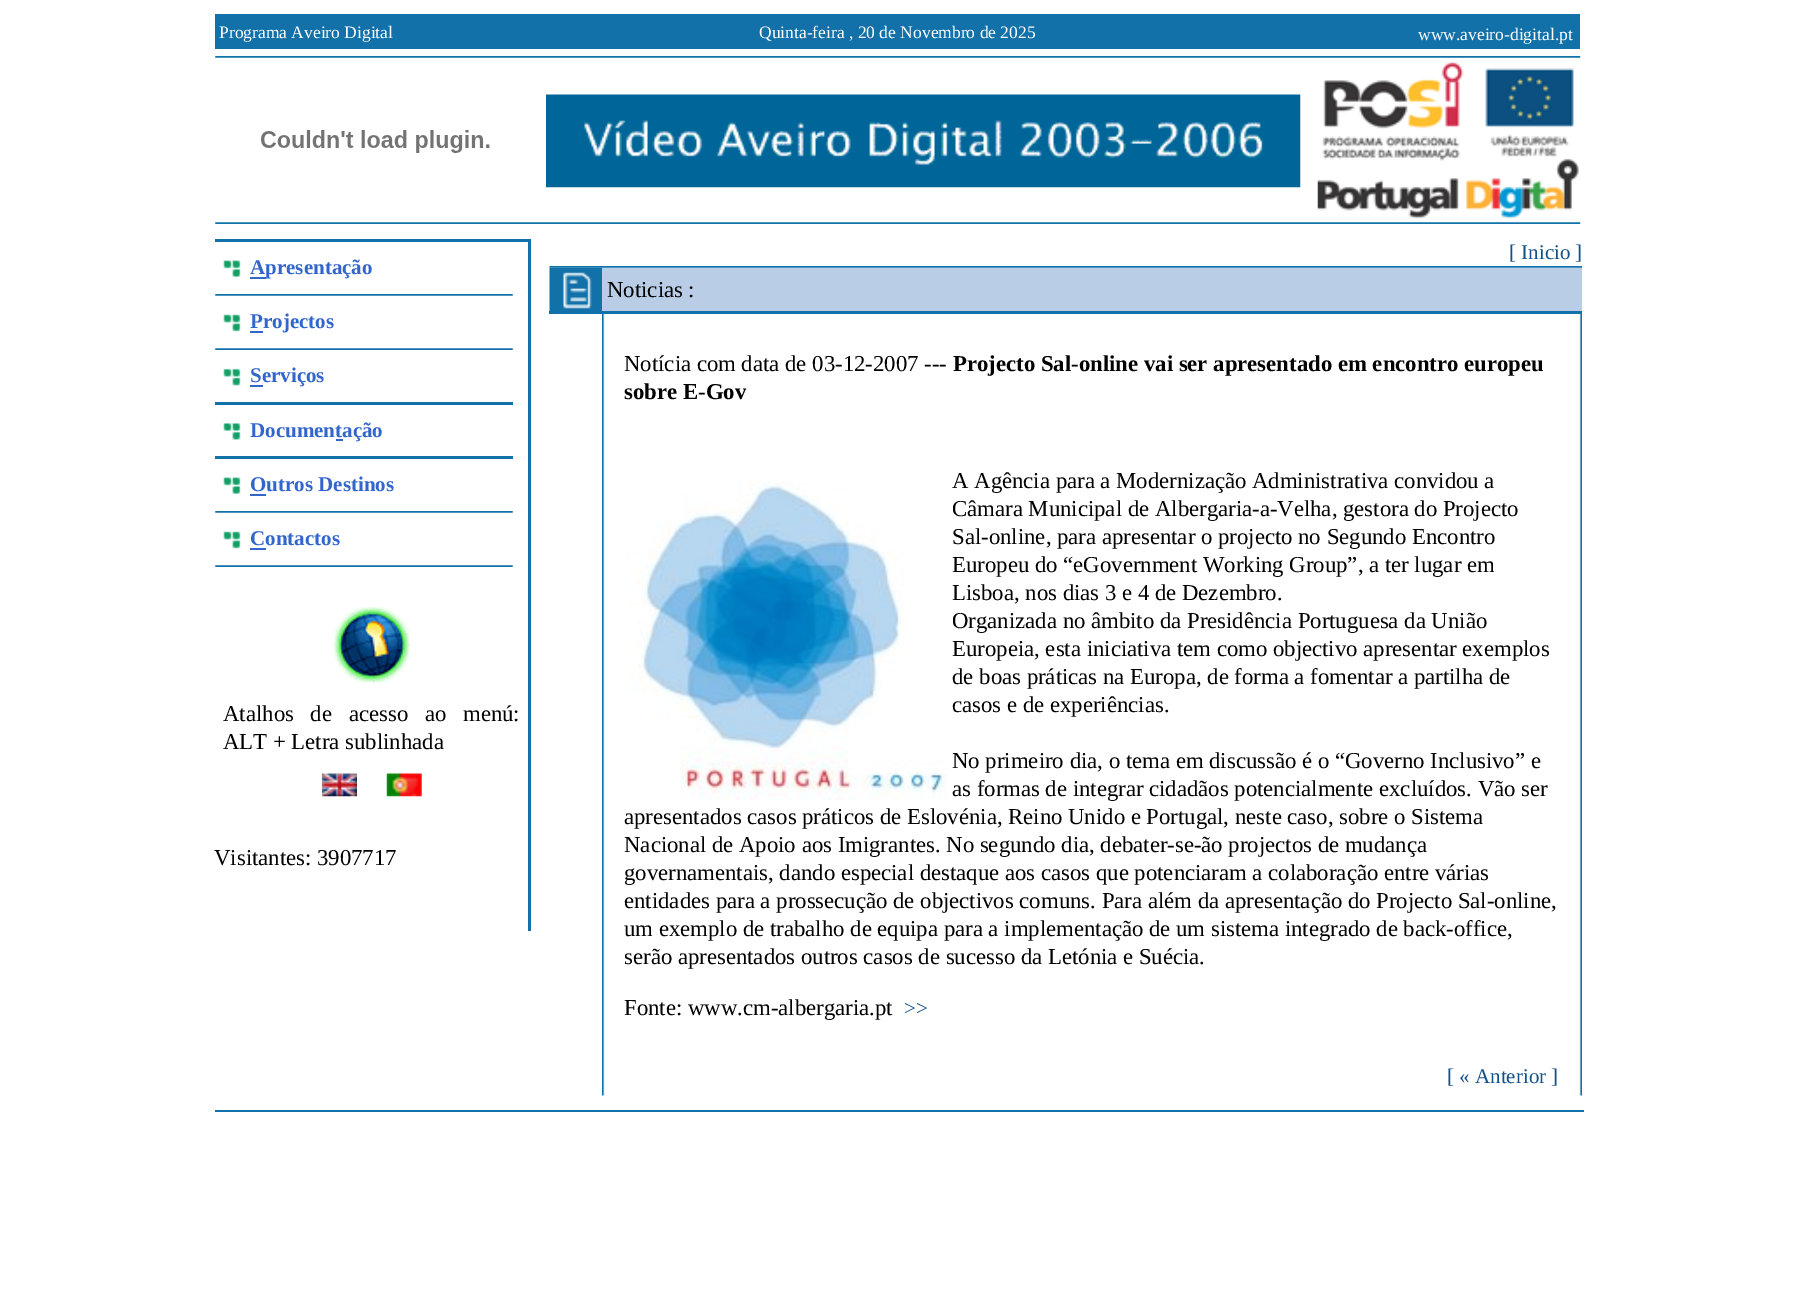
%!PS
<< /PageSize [1796 1309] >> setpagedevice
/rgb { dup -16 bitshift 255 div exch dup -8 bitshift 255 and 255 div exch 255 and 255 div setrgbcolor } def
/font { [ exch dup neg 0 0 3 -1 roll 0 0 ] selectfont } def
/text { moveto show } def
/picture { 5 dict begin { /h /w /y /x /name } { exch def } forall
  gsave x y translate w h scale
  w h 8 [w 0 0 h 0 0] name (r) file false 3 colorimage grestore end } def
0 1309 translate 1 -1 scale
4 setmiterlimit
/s1 { /LiberationSerif-Regular 17.5 font 16#FFFFFF rgb } def
/s2 { /LiberationSerif-Bold 21 font 16#3366CC rgb } def
/s3 { /LiberationSerif-Regular 22.75 font 16#000000 rgb } def
/s4 { /LiberationSerif-Regular 21 font 16#125189 rgb } def
/s5 { /LiberationSerif-Bold 22.75 font 16#000000 rgb } def
16#FFFFFF rgb
0 0 1796 1309 rectfill
16#1271A9 rgb
215 14 1365 35 rectfill
s1
(Programa Aveiro Digital) 219 38 text
(Quinta-feira , 20 de Novembro de 2025) 759 38 text
(www.aveiro-digital.pt) 1418 40 text
(pic1.raw) 215 56 1366 2 picture
(pic2.raw) 261 130 229 23 picture
(pic3.raw) 546 94 755 94 picture
(pic4.raw) 1317 61 262 158 picture
(pic5.raw) 215 222 1366 2 picture
16#1271A9 rgb
528 239 3 692 rectfill
215 239 313 3 rectfill
(pic6.raw) 223 260 18 17 picture
16#3366CC rgb
250 277 16 2 rectfill
s2
(Apresentação) 250 274 text
(pic7.raw) 215 294 298 2 picture
(pic8.raw) 223 314 18 18 picture
250 331 13 2 rectfill
(Projectos) 250 328 text
(pic9.raw) 215 348 298 2 picture
(pic10.raw) 223 368 18 18 picture
250 385 13 2 rectfill
(Serviços) 250 382 text
16#1271A9 rgb
215 402 298 3 rectfill
(pic11.raw) 223 423 18 17 picture
s2
(Documentação) 250 437 text
336 439 7 2 rectfill
16#1271A9 rgb
215 456 298 3 rectfill
(pic6.raw) 223 477 18 17 picture
s2
(Outros Destinos) 250 491 text
250 494 16 2 rectfill
(pic7.raw) 215 511 298 2 picture
(pic8.raw) 223 531 18 18 picture
(Contactos) 250 545 text
250 548 16 2 rectfill
(pic9.raw) 215 565 298 2 picture
(pic12.raw) 334 607 76 76 picture
/LiberationSerif-Regular 22.75 font
16#000000 rgb
223 721 moveto 11 0 32 (Atalhos de acesso ao menú:) widthshow
(ALT + Letra sublinhada) 223 749 text
(pic13.raw) 322 773 35 24 picture
(pic14.raw) 386 773 36 24 picture
(Visitantes: 3907717) 214 865 text
s4
([ Inicio ]) 1509 259 text
(pic15.raw) 549 266 1033 2 picture
(pic16.raw) 549 267 53 44 picture
16#B9CDE6 rgb
602 268 980 43 rectfill
s3
(Noticias :) 607 297 text
16#1271A9 rgb
549 311 1033 3 rectfill
(pic17.raw) 602 314 980 782 picture
s3
(Notícia com data de 03-12-2007 ---) 624 371 text
s5
(Projecto Sal-online vai ser apresentado em encontro europeu) 953 371 text
(sobre E-Gov) 624 399 text
s3
(A Agência para a Modernização Administrativa convidou a) 952 488 text
(Câmara Municipal de Albergaria-a-Velha, gestora do Projecto) 952 516 text
(Sal-online, para apresentar o projecto no Segundo Encontro) 952 544 text
(Europeu do “eGovernment Working Group”, a ter lugar em) 952 572 text
(Lisboa, nos dias 3 e 4 de Dezembro.) 952 600 text
(Organizada no âmbito da Presidência Portuguesa da União) 952 628 text
(Europeia, esta iniciativa tem como objectivo apresentar exemplos) 952 656 text
(de boas práticas na Europa, de forma a fomentar a partilha de) 952 684 text
(casos e de experiências.) 952 712 text
(No primeiro dia, o tema em discussão é o “Governo Inclusivo” e) 952 768 text
(as formas de integrar cidadãos potencialmente excluídos. Vão ser) 952 796 text
(apresentados casos práticos de Eslovénia, Reino Unido e Portugal, neste caso, sobre o Sistema) 624 824 text
(Nacional de Apoio aos Imigrantes. No segundo dia, debater-se-ão projectos de mudança) 624 852 text
(governamentais, dando especial destaque aos casos que potenciaram a colaboração entre várias) 624 880 text
(entidades para a prossecução de objectivos comuns. Para além da apresentação do Projecto Sal-online,) 624 908 text
(um exemplo de trabalho de equipa para a implementação de um sistema integrado de back-office,) 624 936 text
(serão apresentados outros casos de sucesso da Letónia e Suécia.) 624 964 text
(pic18.raw) 625 480 322 320 picture
(Fonte: www.cm-albergaria.pt) 624 1015 text
s4
(>>) 904 1015 text
([ « Anterior ]) 1447 1083 text
16#1271A9 rgb
215 1110 1369 2 rectfill
showpage
